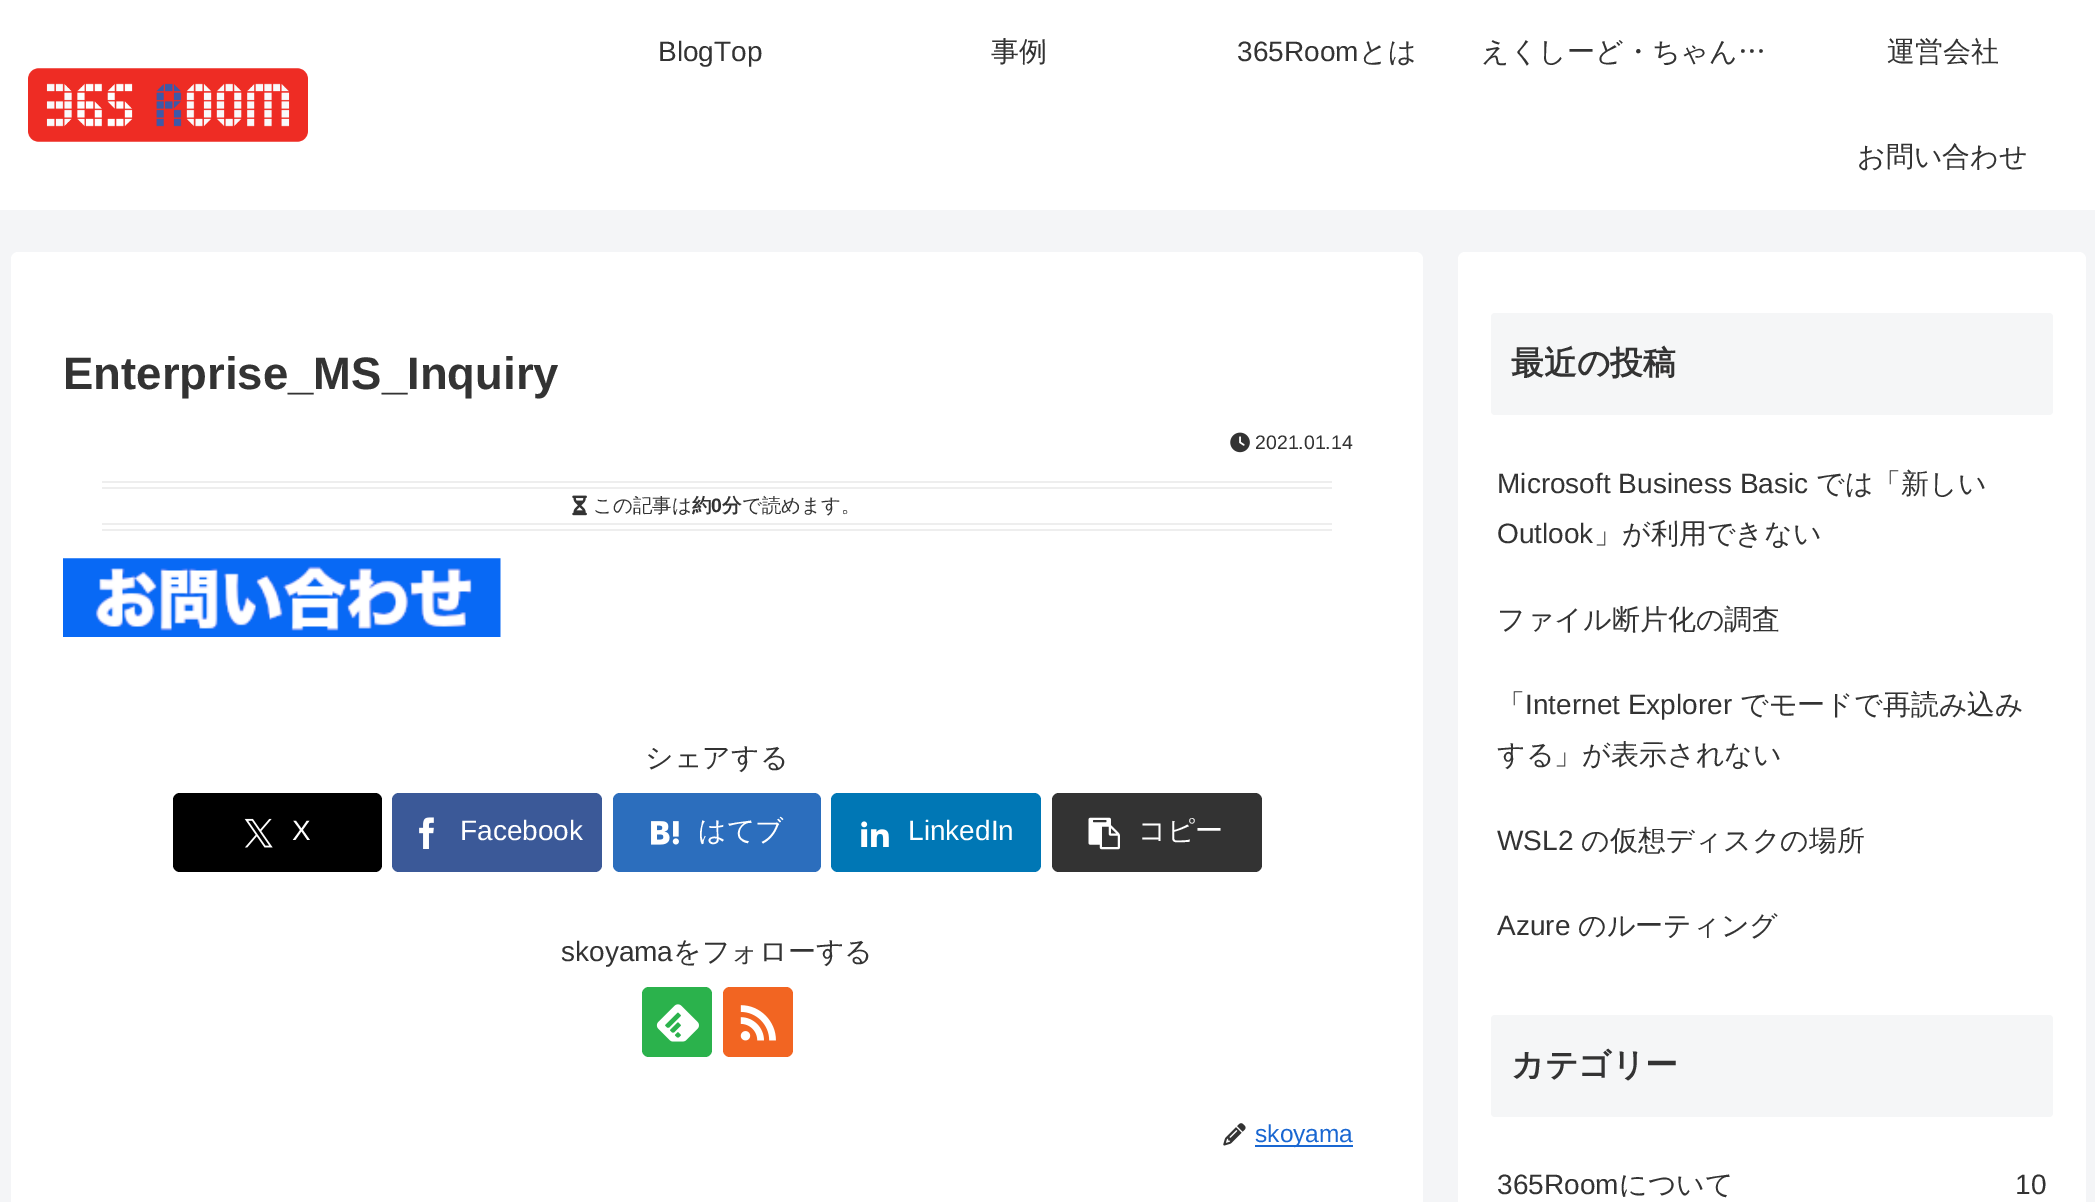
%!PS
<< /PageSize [2095 1202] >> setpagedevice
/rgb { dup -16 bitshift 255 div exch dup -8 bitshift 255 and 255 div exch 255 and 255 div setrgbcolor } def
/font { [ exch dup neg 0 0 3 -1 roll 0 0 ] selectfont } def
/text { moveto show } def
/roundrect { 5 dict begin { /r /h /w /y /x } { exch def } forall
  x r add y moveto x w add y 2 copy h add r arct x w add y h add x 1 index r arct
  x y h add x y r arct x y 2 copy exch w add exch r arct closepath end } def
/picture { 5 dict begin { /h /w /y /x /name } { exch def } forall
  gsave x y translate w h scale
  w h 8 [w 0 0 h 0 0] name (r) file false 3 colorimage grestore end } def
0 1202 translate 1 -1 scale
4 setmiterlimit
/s1 { /LiberationSans-Regular 28 font 16#333333 rgb } def
/s2 { /WenQuanYiZenHei-Medium 28 font 16#333333 rgb } def
/s3 { /LiberationSans-Bold 45.5 font 16#333333 rgb } def
/s4 { /LiberationSans-Regular 19.5 font 16#333333 rgb } def
/s5 { /WenQuanYiZenHei-Medium 19.5 font 16#333333 rgb } def
/s6 { /WenQuanYiZenHei-Bold 19.5 font 16#333333 rgb } def
/s7 { /LiberationSans-Bold 19.5 font 16#333333 rgb } def
/s8 { /LiberationSans-Regular 28 font 16#FFFFFF rgb } def
/s9 { /WenQuanYiZenHei-Medium 28 font 16#FFFFFF rgb } def
/s10 { /LiberationSans-Regular 24.5 font 16#1967D2 rgb } def
/s11 { /WenQuanYiZenHei-Bold 32.75 font 16#333333 rgb } def
16#F4F5F7 rgb
0 0 2095 1202 rectfill
16#FFFFFF rgb
0 0 2095 210 rectfill
(pic1.raw) 28 68 280 74 picture
s1
(BlogTop) 658 61 text
s2
(事例) 991 61 text
s1
(365Room) 1237 61 text
s2
(とは) 1359 61 text
(えくしーど・ちゃん…) 1481 61 text
(運営会社) 1887 61 text
(お問い合わせ) 1857 166 text
16#FFFFFF rgb
11 252 1412 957 7 roundrect fill
s3
(Enterprise_MS_Inquiry) 63 389 text
(pic2.raw) 1230 432 20 21 picture
s4
(2021.01.14) 1255 449 text
16#EEEEEE rgb
102 481 1230 2 rectfill
102 487 1230 2 rectfill
102 523 1230 2 rectfill
102 529 1230 2 rectfill
(pic3.raw) 572 495 15 21 picture
s5
(この記事は) 593 512 text
s6
(約) 692 512 text
s7
(0) 711 512 text
s6
(分) 722 512 text
s5
(で読めます。) 742 512 text
(pic4.raw) 63 558 438 79 picture
s2
(シェアする) 645 767 text
16#000000 rgb
173 793 209 79 7 roundrect fill
(pic5.raw) 244 818 29 30 picture
s8
(X) 292 840 text
16#3B5998 rgb
392 793 210 79 7 roundrect fill
(pic6.raw) 419 817 15 32 picture
s8
(Facebook) 460 840 text
16#2C6EBD rgb
613 793 208 79 7 roundrect fill
(pic7.raw) 651 821 28 24 picture
s9
(はてブ) 698 840 text
16#0077B5 rgb
831 793 210 79 7 roundrect fill
(pic8.raw) 861 821 28 26 picture
s8
(LinkedIn) 908 840 text
16#333333 rgb
1052 793 210 79 7 roundrect fill
(pic9.raw) 1088 817 32 33 picture
s9
(コピー) 1138 840 text
s1
(skoyama) 561 961 text
s2
(をフォローする) 673 961 text
16#2BB24C rgb
642 987 70 70 7 roundrect fill
(pic10.raw) 656 1004 43 38 picture
16#F26522 rgb
723 987 70 70 7 roundrect fill
(pic11.raw) 740 1005 36 36 picture
(pic12.raw) 1223 1123 23 23 picture
16#1967D2 rgb
1255 1145 98 2 rectfill
s10
(skoyama) 1255 1142 text
16#FFFFFF rgb
1458 252 628 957 7 roundrect fill
16#F5F6F7 rgb
1491 313 562 102 4 roundrect fill
s11
(最近の投稿) 1511 374 text
s1
(Microsoft Business Basic) 1497 493 text
s2
(では「新しい) 1816 493 text
s1
(Outlook) 1497 543 text
s2
(」が利用できない) 1594 543 text
(ファイル断片化の調査) 1497 629 text
(「) 1497 714 text
s1
(Internet Explorer) 1525 714 text
s2
(でモードで再読み込み) 1740 714 text
(する」が表示されない) 1497 764 text
s1
(WSL2) 1497 850 text
s2
(の仮想ディスクの場所) 1581 850 text
s1
(Azure) 1497 935 text
s2
(のルーティング) 1578 935 text
16#F5F6F7 rgb
1491 1015 562 102 4 roundrect fill
s11
(カテゴリー) 1511 1076 text
s1
(365Room) 1497 1194 text
s2
(について) 1619 1194 text
s1
(10) 2015 1194 text
showpage
